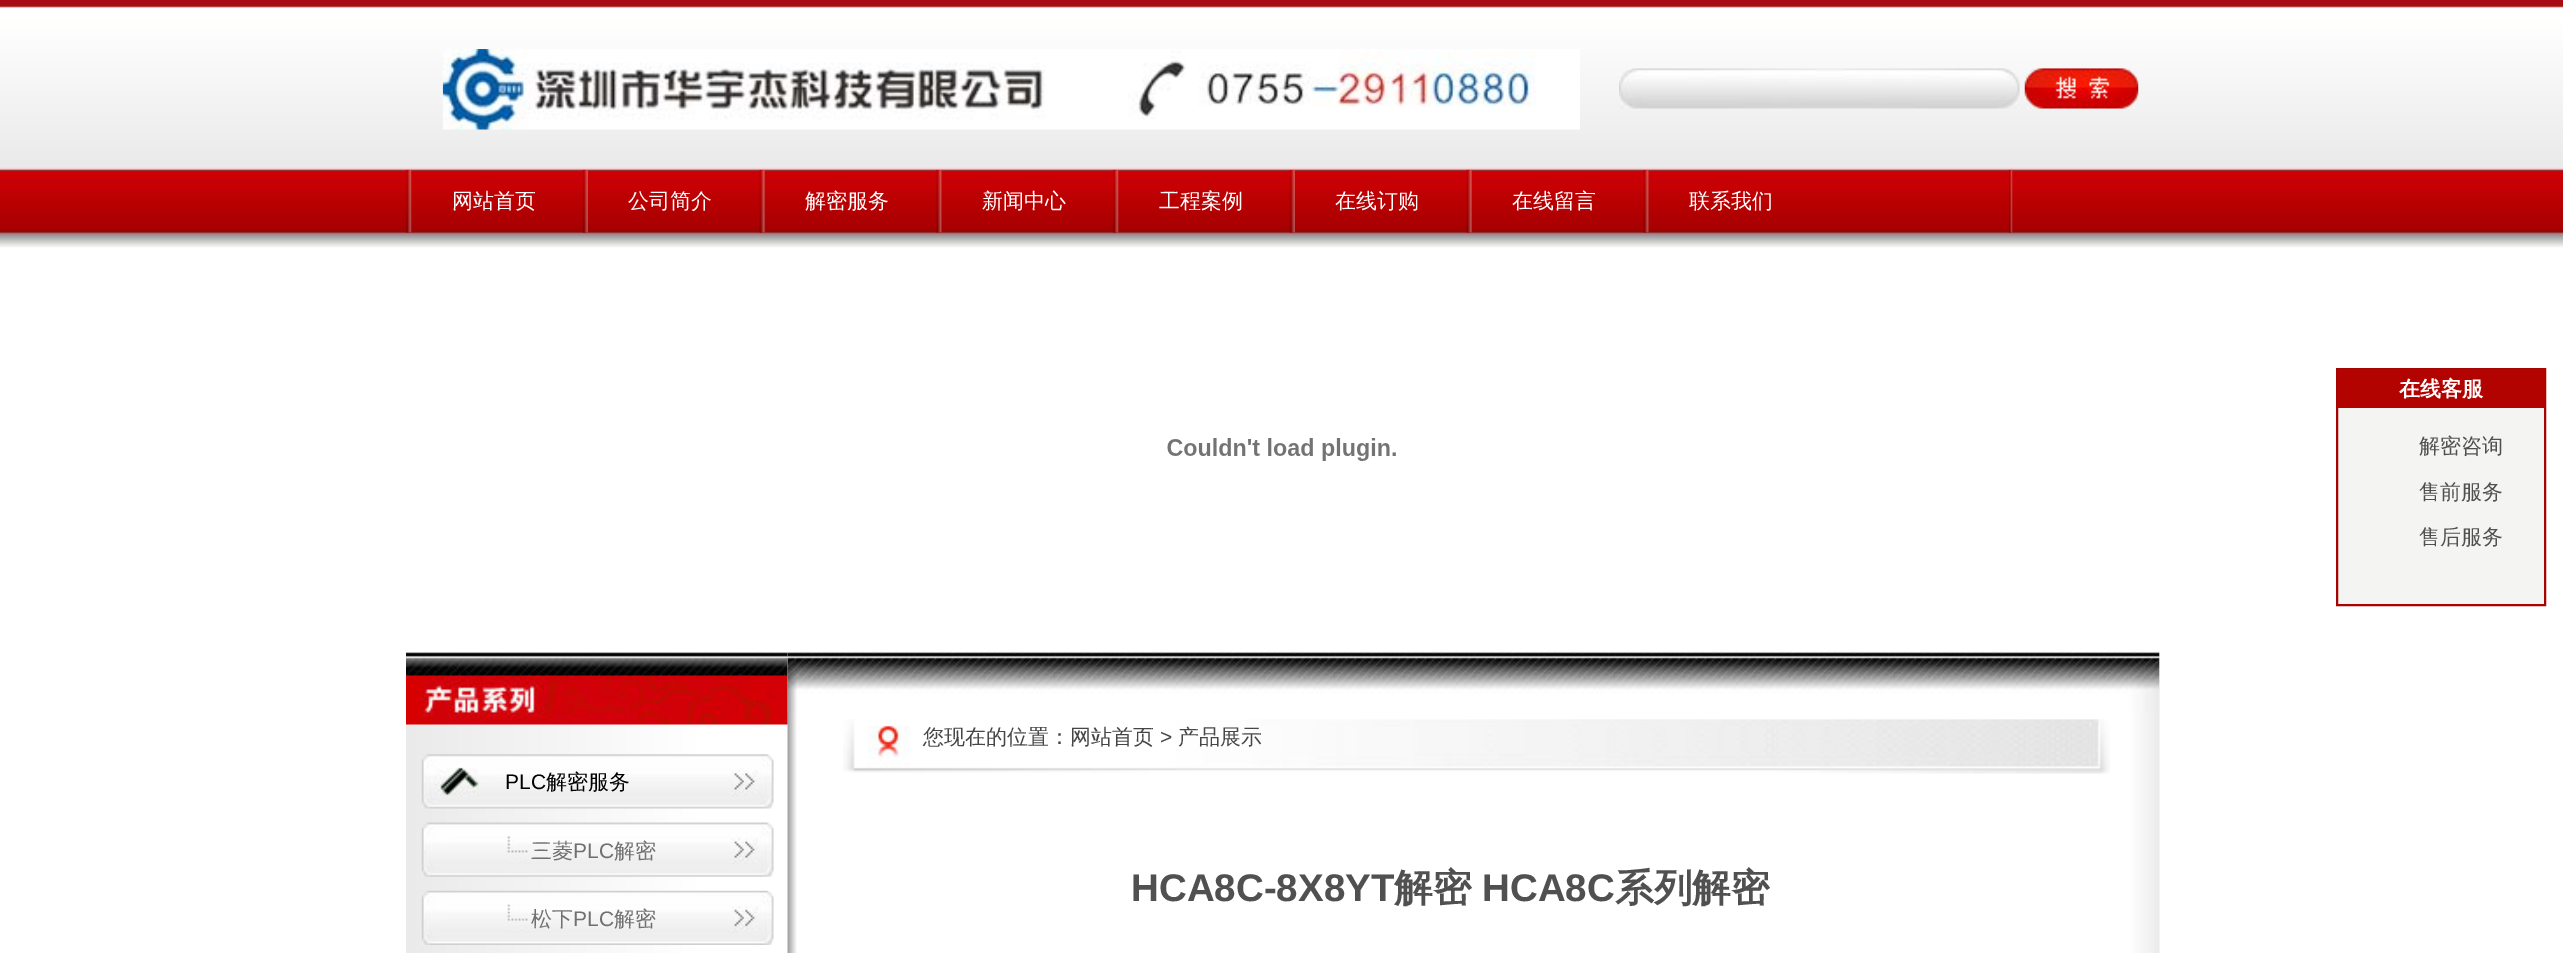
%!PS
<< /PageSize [2563 953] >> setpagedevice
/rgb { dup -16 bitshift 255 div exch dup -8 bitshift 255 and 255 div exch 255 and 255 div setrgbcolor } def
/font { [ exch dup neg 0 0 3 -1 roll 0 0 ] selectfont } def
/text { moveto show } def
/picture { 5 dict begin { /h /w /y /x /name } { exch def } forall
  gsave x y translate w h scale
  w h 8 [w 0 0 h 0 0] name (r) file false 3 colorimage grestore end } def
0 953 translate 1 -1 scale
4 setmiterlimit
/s1 { /WenQuanYiZenHei-Medium 21 font 16#FFFFFF rgb } def
/s2 { /LiberationSans-Regular 21 font 16#000000 rgb } def
/s3 { /WenQuanYiZenHei-Medium 21 font 16#000000 rgb } def
/s4 { /WenQuanYiZenHei-Medium 21 font 16#707070 rgb } def
/s5 { /LiberationSans-Regular 21 font 16#707070 rgb } def
/s6 { /WenQuanYiZenHei-Medium 21 font 16#464646 rgb } def
/s7 { /LiberationSans-Regular 21 font 16#464646 rgb } def
/s8 { /LiberationSans-Bold 38.5 font 16#505050 rgb } def
/s9 { /WenQuanYiZenHei-Bold 38.5 font 16#505050 rgb } def
/s10 { /WenQuanYiZenHei-Bold 21 font 16#FFFFFF rgb } def
/s11 { /WenQuanYiZenHei-Medium 21 font 16#505050 rgb } def
16#FFFFFF rgb
0 0 2563 953 rectfill
(pic1.raw) 0 0 2563 248 picture
(pic2.raw) 442 49 1138 81 picture
(pic3.raw) 1619 68 401 41 picture
(pic4.raw) 2024 68 115 41 picture
(pic5.raw) 406 170 6 63 picture
s1
(网站首页) 452 208 text
(pic6.raw) 582 169 6 64 picture
(公司简介) 628 208 text
(pic7.raw) 759 169 6 64 picture
(解密服务) 805 208 text
(pic8.raw) 936 170 6 63 picture
(新闻中心) 982 208 text
(pic9.raw) 1113 169 6 64 picture
(工程案例) 1159 208 text
(pic10.raw) 1289 170 6 63 picture
(在线订购) 1335 208 text
(pic7.raw) 1466 169 6 64 picture
(在线留言) 1512 208 text
(pic8.raw) 1643 170 6 63 picture
(联系我们) 1689 208 text
(pic11.raw) 2009 169 4 64 picture
(pic12.raw) 1167 438 229 23 picture
(pic13.raw) 406 651 1754 302 picture
(pic15.raw) 406 651 382 74 picture
(pic14.raw) 787 651 1373 61 picture
(pic16.raw) 421 754 353 55 picture
s2
(PLC) 505 789 text
s3
(解密服务) 546 789 text
(pic17.raw) 421 822 353 55 picture
s4
(三菱) 531 858 text
s5
(PLC) 573 858 text
s4
(解密) 614 858 text
(pic18.raw) 421 890 353 55 picture
(松下) 531 926 text
s5
(PLC) 573 926 text
s4
(解密) 614 926 text
(pic19.raw) 843 719 1267 55 picture
s6
(您现在的位置：网站首页) 923 744 text
s7
(>) 1160 744 text
s6
(产品展示) 1178 744 text
s8
(HCA8C-8X8YT) 1131 901 text
s9
(解密) 1394 901 text
s8
(HCA8C) 1482 901 text
s9
(系列解密) 1615 901 text
16#F4F4F2 rgb
2338 408 206 196 rectfill
16#A40402 rgb
2 setlinewidth
2337 369 208 236 rectstroke
16#B20301 rgb
2338 369 207 39 rectfill
s10
(在线客服) 2399 396 text
s11
(解密咨询) 2419 453 text
(售前服务) 2419 499 text
(售后服务) 2419 544 text
showpage
